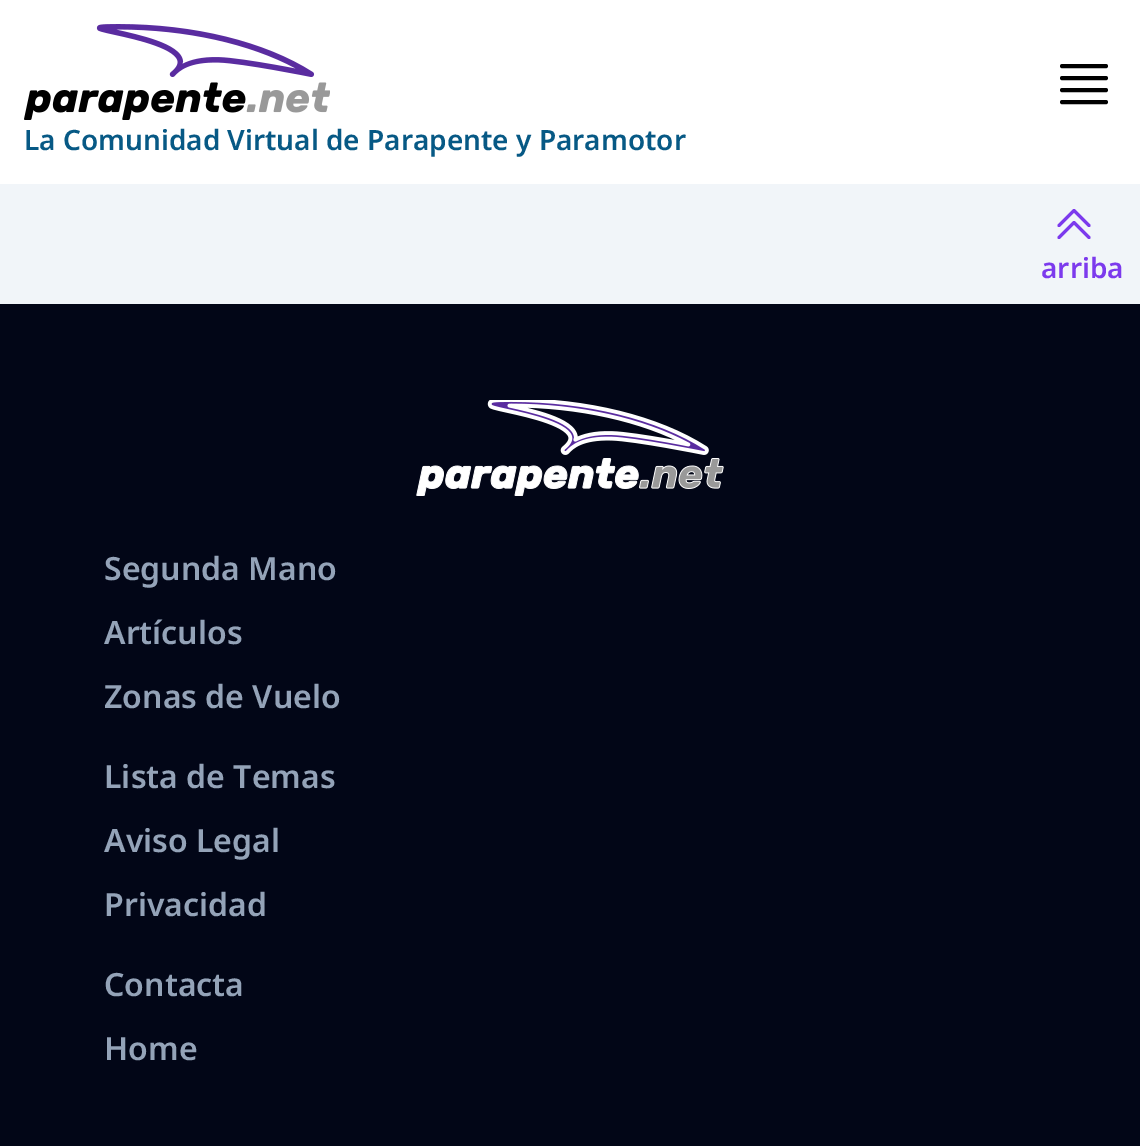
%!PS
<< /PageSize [1140 1146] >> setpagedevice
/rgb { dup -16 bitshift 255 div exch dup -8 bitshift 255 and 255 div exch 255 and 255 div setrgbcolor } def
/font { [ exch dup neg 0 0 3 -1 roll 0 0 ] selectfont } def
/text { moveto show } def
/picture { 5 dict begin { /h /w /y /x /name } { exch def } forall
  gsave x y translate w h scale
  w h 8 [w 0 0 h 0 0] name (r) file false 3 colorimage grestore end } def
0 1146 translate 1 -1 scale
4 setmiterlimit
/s1 { /NotoSans-SemiBold 28 font 16#075985 rgb } def
/s2 { /NotoSans-SemiBold 28 font 16#7C3AED rgb } def
/s3 { /NotoSans-SemiBold 32 font 16#94A3B8 rgb } def
16#FFFFFF rgb
0 0 1140 1146 rectfill
16#000000 rgb
4 setlinewidth
1 setlinecap
1 setlinejoin
1062 66 moveto 1106 66 lineto 1062 78 moveto 1106 78 lineto 1062 90 moveto 1106 90 lineto 1062 102 moveto 1106 102 lineto stroke
(pic1.raw) 24 24 306 96 picture
s1
(La Comunidad Virtual de Parapente y Paramotor) 24 150 text
16#020617 rgb
0 304 1140 842 rectfill
16#F1F5F9 rgb
0 184 1140 120 rectfill
16#7C3AED rgb
3 setlinewidth
1059 225.5 moveto 1074 210.5 lineto 1089 225.5 lineto 1059 237.5 moveto 1074 222.5 lineto 1089 237.5 lineto stroke
(arriba) 1041 278 text
(pic2.raw) 416 400 308 96 picture
s3
(Segunda Mano) 104 580 text
(Artículos) 104 644 text
(Zonas de Vuelo) 104 708 text
(Lista de Temas) 104 788 text
(Aviso Legal) 104 852 text
(Privacidad) 104 916 text
(Contacta) 104 996 text
(Home) 104 1060 text
showpage
